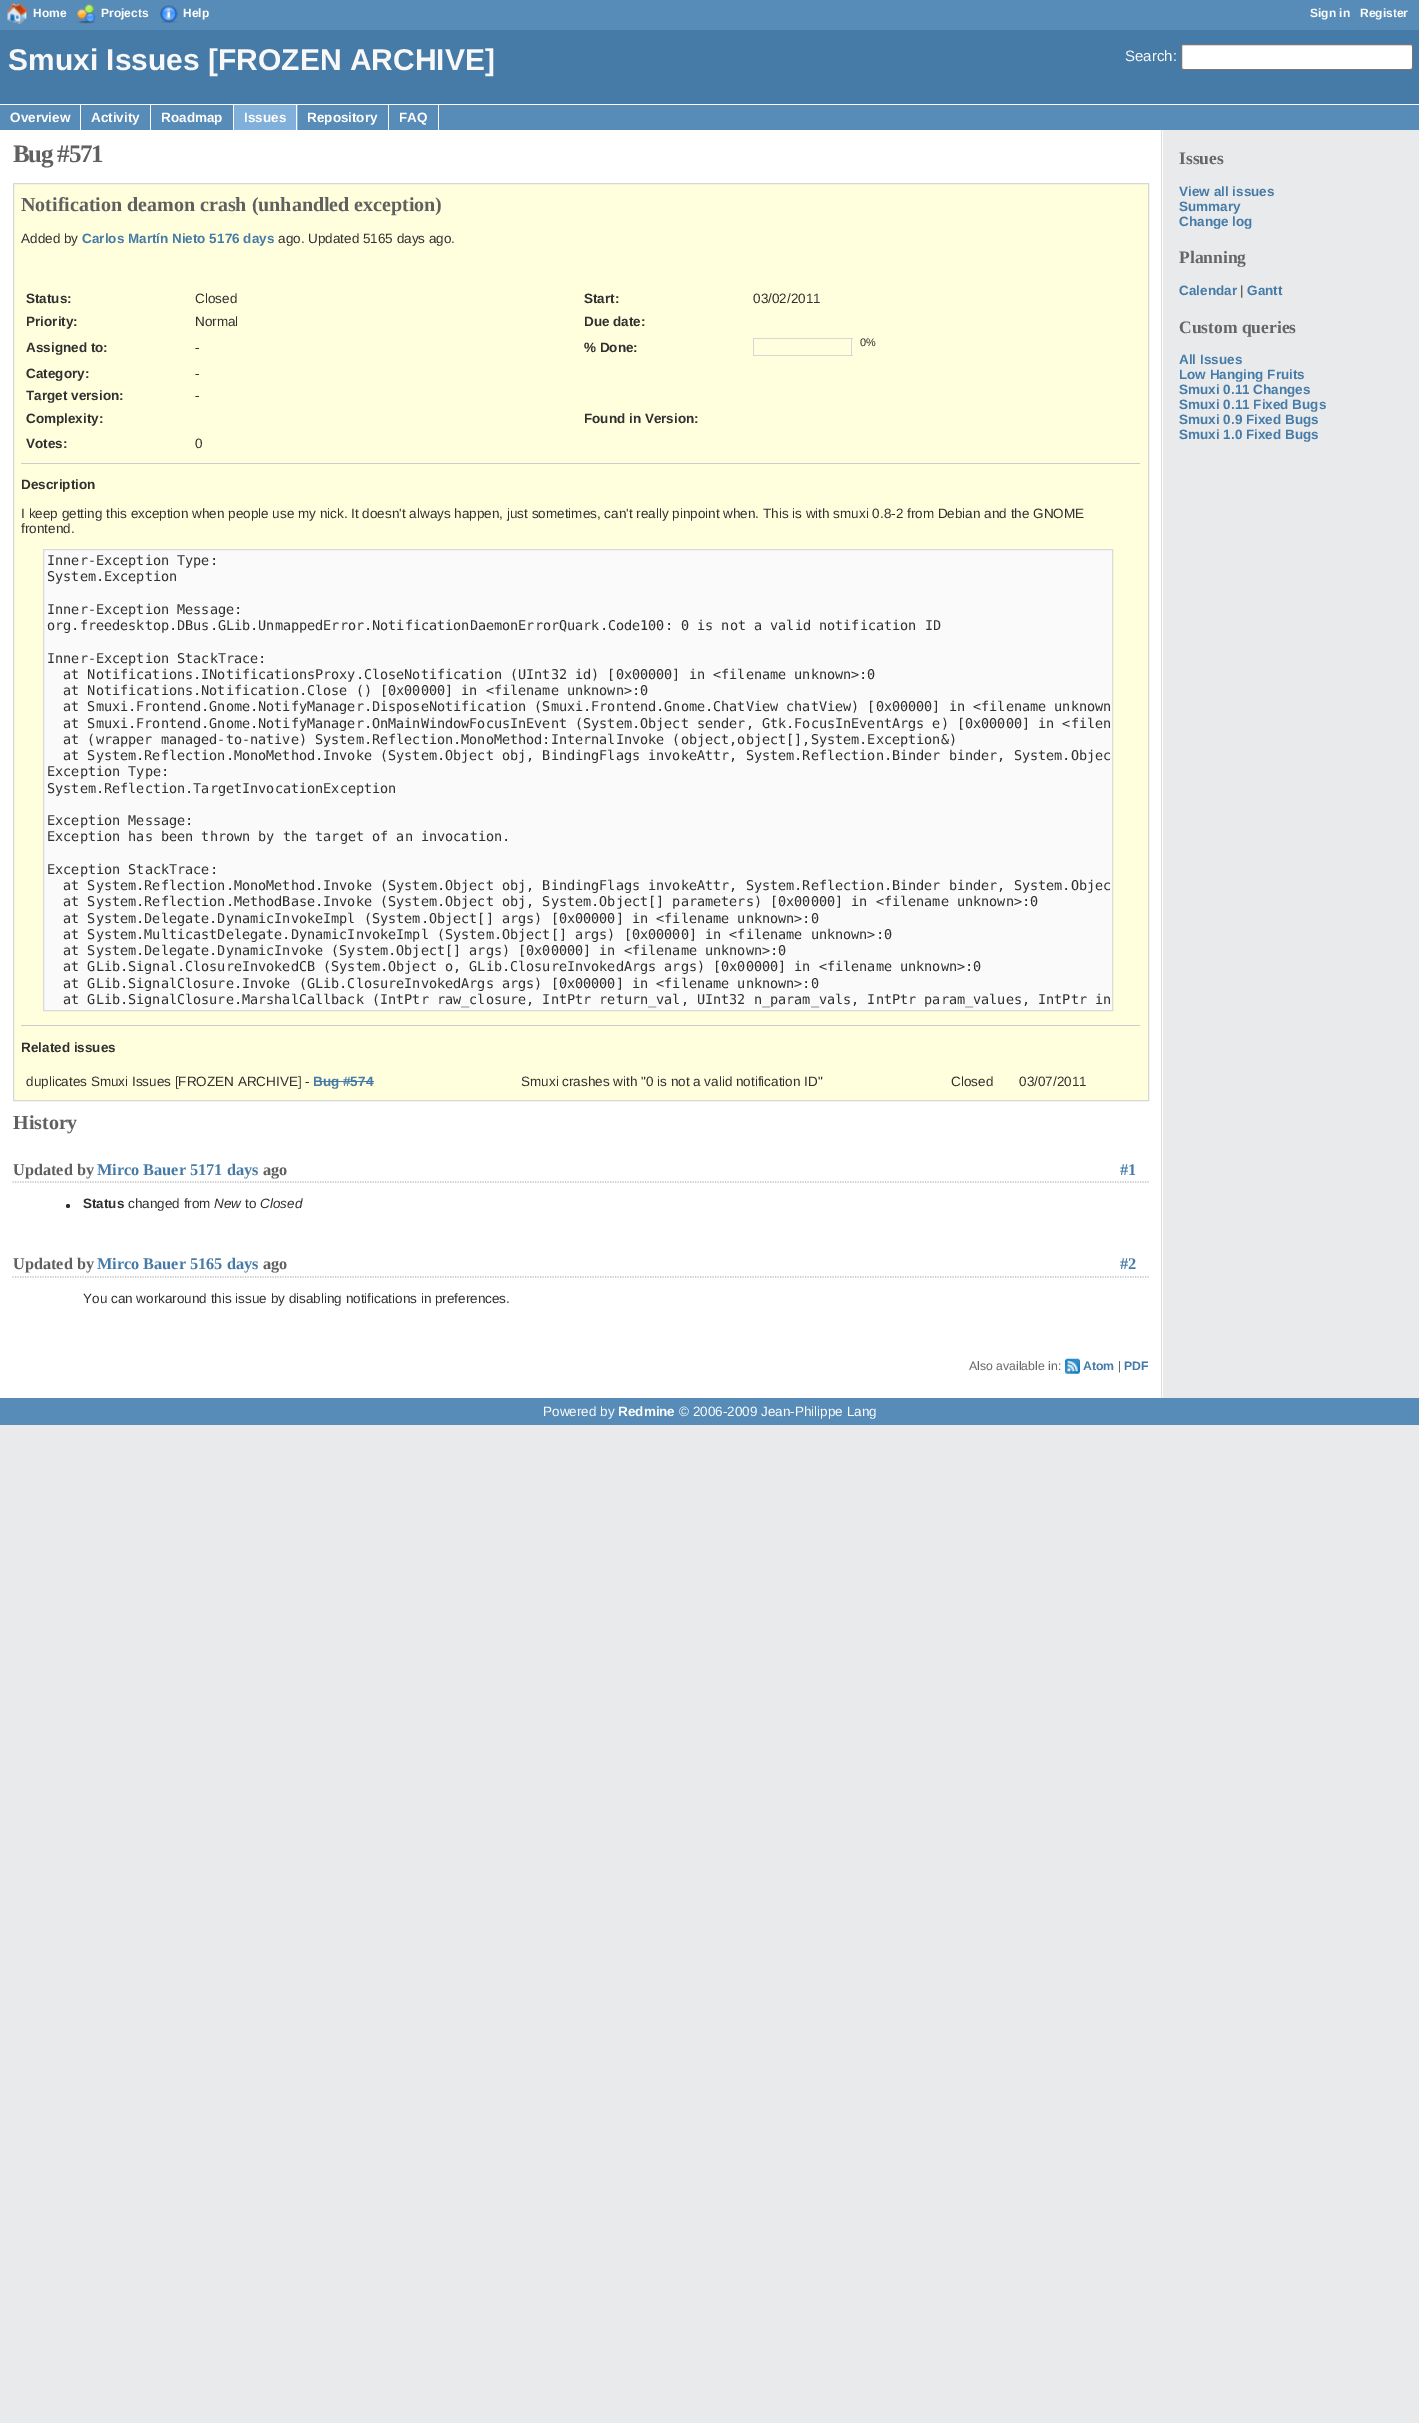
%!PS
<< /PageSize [1419 2423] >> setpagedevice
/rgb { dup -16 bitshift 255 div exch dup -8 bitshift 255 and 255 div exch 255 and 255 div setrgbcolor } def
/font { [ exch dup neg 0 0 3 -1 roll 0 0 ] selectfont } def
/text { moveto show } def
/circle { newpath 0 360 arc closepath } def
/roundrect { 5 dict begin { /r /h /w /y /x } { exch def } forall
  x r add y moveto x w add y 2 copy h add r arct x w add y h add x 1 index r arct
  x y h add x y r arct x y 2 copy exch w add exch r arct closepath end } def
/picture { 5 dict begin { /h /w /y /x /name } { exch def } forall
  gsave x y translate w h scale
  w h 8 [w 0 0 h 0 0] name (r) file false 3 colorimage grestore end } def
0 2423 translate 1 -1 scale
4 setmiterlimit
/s1 { /LiberationSans-Bold 12 font 16#FFFFFF rgb } def
/s2 { /LiberationSans-Bold 30 font 16#F8F8F8 rgb } def
/s3 { /LiberationSans-Regular 15 font 16#F8F8F8 rgb } def
/s4 { /LiberationSans-Bold 13.5 font 16#FFFFFF rgb } def
/s5 { /LiberationSerif-Bold 20 font 16#606060 rgb } def
/s6 { /LiberationSans-Regular 13.5 font 16#303030 rgb } def
/s7 { /LiberationSans-Bold 13.5 font 16#467AA7 rgb } def
/s8 { /LiberationSans-Bold 13.5 font 16#303030 rgb } def
/s9 { /LiberationSans-Regular 11 font 16#303030 rgb } def
/s10 { /DejaVuSansMono-Regular 13.5 font 16#303030 rgb } def
/s11 { /LiberationSerif-Bold 16.25 font 16#606060 rgb } def
/s12 { /LiberationSerif-Bold 16.25 font 16#467AA7 rgb } def
/s13 { /LiberationSans-Italic 13.5 font 16#303030 rgb } def
/s14 { /LiberationSans-Regular 12.25 font 16#666666 rgb } def
/s15 { /LiberationSans-Bold 12.25 font 16#467AA7 rgb } def
/s16 { /LiberationSerif-Bold 17.5 font 16#666666 rgb } def
/s17 { /LiberationSans-Regular 13.5 font 16#FFFFFF rgb } def
16#E8EAEC rgb
0 0 1419 2423 rectfill
16#578BB8 rgb
0 0 1419 30 rectfill
(pic1.raw) 7 3 21 21 picture
s1
(Home) 33 17 text
(pic2.raw) 76 3 20 21 picture
(Projects) 101 17 text
(pic3.raw) 160 5 18 18 picture
(Help) 183 17 text
(Sign in) 1310 17 text
(Register) 1360 17 text
16#467AA7 rgb
0 30 1419 74 rectfill
s2
(Smuxi Issues [FROZEN ARCHIVE]) 8 70 text
s3
(Search:) 1125 61 text
16#FFFFFF rgb
1181.5 44.5 231 25 2 roundrect gsave fill grestore
16#767676 rgb
stroke
16#578BB8 rgb
0 105 1419 25 rectfill
16#FFFFFF rgb
0 104 1419 1 rectfill
80 105 1 25 rectfill
s4
(Overview) 10 122 text
150 105 1 25 rectfill
(Activity) 91 122 text
233 105 1 25 rectfill
(Roadmap) 161 122 text
16#80B0DA rgb
234 105 64 25 rectfill
16#FFFFFF rgb
296 105 1 25 rectfill
(Issues) 244 122 text
388 105 1 25 rectfill
(Repository) 307 122 text
438 105 1 25 rectfill
(FAQ) 399 122 text
0 130 1163 1268 rectfill
16#DDDDDD rgb
1161 130 1 1268 rectfill
/LiberationSerif-Bold 25 font
16#606060 rgb
13 162 moveto -1.25 0 (Bug #571) ashow
16#FFFFDD rgb
13.5 183.5 moveto 1148.5 183.5 lineto 1148.5 1100.5 lineto 13.5 1100.5 lineto closepath gsave fill grestore
16#D7D7D7 rgb
stroke
s5
(Notification deamon crash \(unhandled exception\)) 21 211 text
s6
(Added by) 21 243 text
s7
(Carlos Martín Nieto 5176 days) 82 243 text
s6
(ago. Updated 5165 days ago.) 278 243 text
s8
(Status:) 26 303 text
s6
(Closed) 195 303 text
s8
(Start:) 584 303 text
s6
(03/02/2011) 753 303 text
s8
(Priority:) 26 326 text
s6
(Normal) 195 326 text
s8
(Due date:) 584 326 text
(Assigned to:) 26 352 text
s6
(-) 195 352 text
s8
(% Done:) 584 352 text
16#D7D7D7 rgb
753 338 100 1 rectfill
851 338 1 18 rectfill
753 355 100 1 rectfill
753 338 1 18 rectfill
s9
(0%) 860 346 text
s8
(Category:) 26 378 text
s6
(-) 195 378 text
s8
(Target version:) 26 400 text
s6
(-) 195 400 text
s8
(Complexity:) 26 423 text
(Found in Version:) 584 423 text
(Votes:) 26 448 text
s6
(0) 195 448 text
16#CCCCCC rgb
21 463 1119 1 rectfill
s8
(Description) 21 489 text
s6
(I keep getting this exception when people use my nick. It doesn't always happen, just sometimes, can't really pinpoint when. This is with smuxi 0.8-2 from Debian and the GNOME) 21 518 text
(frontend.) 21 533 text
16#FAFAFA rgb
43.5 549.5 moveto 1112.5 549.5 lineto 1112.5 1010.5 lineto 43.5 1010.5 lineto closepath gsave fill grestore
16#DADADA rgb
stroke
s10
(Inner-Exception Type:) 47 565 text
(System.Exception) 47 581 text
(Inner-Exception Message:) 47 614 text
(org.freedesktop.DBus.GLib.UnmappedError.NotificationDaemonErrorQuark.Code100: 0 is not a valid notification ID) 47 630 text
(Inner-Exception StackTrace:) 47 663 text
(at Notifications.INotificationsProxy.CloseNotification \(UInt32 id\) [0x00000] in <filename unknown>:0) 63 679 text
(at Notifications.Notification.Close \(\) [0x00000] in <filename unknown>:0) 63 695 text
(at Smuxi.Frontend.Gnome.NotifyManager.DisposeNotification \(Smuxi.Frontend.Gnome.ChatView chatView\) [0x00000] in <filename unknown) 63 711 text
(at Smuxi.Frontend.Gnome.NotifyManager.OnMainWindowFocusInEvent \(System.Object sender, Gtk.FocusInEventArgs e\) [0x00000] in <filen) 63 728 text
(at \(wrapper managed-to-native\) System.Reflection.MonoMethod:InternalInvoke \(object,object[],System.Exception&\)) 63 744 text
(at System.Reflection.MonoMethod.Invoke \(System.Object obj, BindingFlags invokeAttr, System.Reflection.Binder binder, System.Objec) 63 760 text
(Exception Type:) 47 776 text
(System.Reflection.TargetInvocationException) 47 793 text
(Exception Message:) 47 825 text
(Exception has been thrown by the target of an invocation.) 47 841 text
(Exception StackTrace:) 47 874 text
(at System.Reflection.MonoMethod.Invoke \(System.Object obj, BindingFlags invokeAttr, System.Reflection.Binder binder, System.Objec) 63 890 text
(at System.Reflection.MethodBase.Invoke \(System.Object obj, System.Object[] parameters\) [0x00000] in <filename unknown>:0) 63 906 text
(at System.Delegate.DynamicInvokeImpl \(System.Object[] args\) [0x00000] in <filename unknown>:0) 63 923 text
(at System.MulticastDelegate.DynamicInvokeImpl \(System.Object[] args\) [0x00000] in <filename unknown>:0) 63 939 text
(at System.Delegate.DynamicInvoke \(System.Object[] args\) [0x00000] in <filename unknown>:0) 63 955 text
(at GLib.Signal.ClosureInvokedCB \(System.Object o, GLib.ClosureInvokedArgs args\) [0x00000] in <filename unknown>:0) 63 971 text
(at GLib.SignalClosure.Invoke \(GLib.ClosureInvokedArgs args\) [0x00000] in <filename unknown>:0) 63 988 text
(at GLib.SignalClosure.MarshalCallback \(IntPtr raw_closure, IntPtr return_val, UInt32 n_param_vals, IntPtr param_values, IntPtr in) 63 1004 text
16#CCCCCC rgb
21 1025 1119 1 rectfill
s8
(Related issues) 21 1052 text
s6
(duplicates Smuxi Issues [FROZEN ARCHIVE] -) 26 1086 text
s7
(Bug #574) 313 1086 text
314 1081 60 1 rectfill
s6
(Smuxi crashes with "0 is not a valid notification ID") 521 1086 text
(Closed) 951 1086 text
(03/07/2011) 1019 1086 text
s5
(History) 13 1129 text
16#C0C0C0 rgb
1.2 setlinewidth
[1.25 1.25] 0 setdash
12.5 1182 moveto 1149 1182 lineto stroke
s11
(Updated by) 13 1175 text
s12
(Mirco Bauer 5171 days) 97 1175 text
s11
(ago) 263 1175 text
s12
(#1) 1120 1175 text
16#303030 rgb
68 1206 2 circle fill
s8
(Status) 83 1208 text
s6
(changed from) 128 1208 text
s13
(New) 214 1208 text
s6
(to) 245 1208 text
s13
(Closed) 260 1208 text
16#C0C0C0 rgb
12.5 1277 moveto 1149 1277 lineto stroke
s11
(Updated by) 13 1269 text
s12
(Mirco Bauer 5165 days) 97 1269 text
s11
(ago) 263 1269 text
s12
(#2) 1120 1269 text
s6
(You can workaround this issue by disabling notifications in preferences.) 83 1303 text
s14
(Also available in:) 969 1370 text
(pic4.raw) 1065 1358 15 16 picture
s15
(Atom) 1083 1370 text
s14
(|) 1118 1370 text
s15
(PDF) 1124 1370 text
s16
(Issues) 1179 164 text
s7
(View all issues) 1179 196 text
(Summary) 1179 211 text
(Change log) 1179 226 text
s16
(Planning) 1179 263 text
s7
(Calendar) 1179 295 text
s6
(|) 1240 295 text
s7
(Gantt) 1247 295 text
s16
(Custom queries) 1179 333 text
s7
(All Issues) 1179 364 text
(Low Hanging Fruits) 1179 379 text
(Smuxi 0.11 Changes) 1179 394 text
(Smuxi 0.11 Fixed Bugs) 1179 409 text
(Smuxi 0.9 Fixed Bugs) 1179 424 text
(Smuxi 1.0 Fixed Bugs) 1179 439 text
16#578BB8 rgb
0 1398 1419 27 rectfill
s17
(Powered by) 543 1416 text
s4
(Redmine) 618 1416 text
s17
(© 2006-2009 Jean-Philippe Lang) 679 1416 text
showpage
